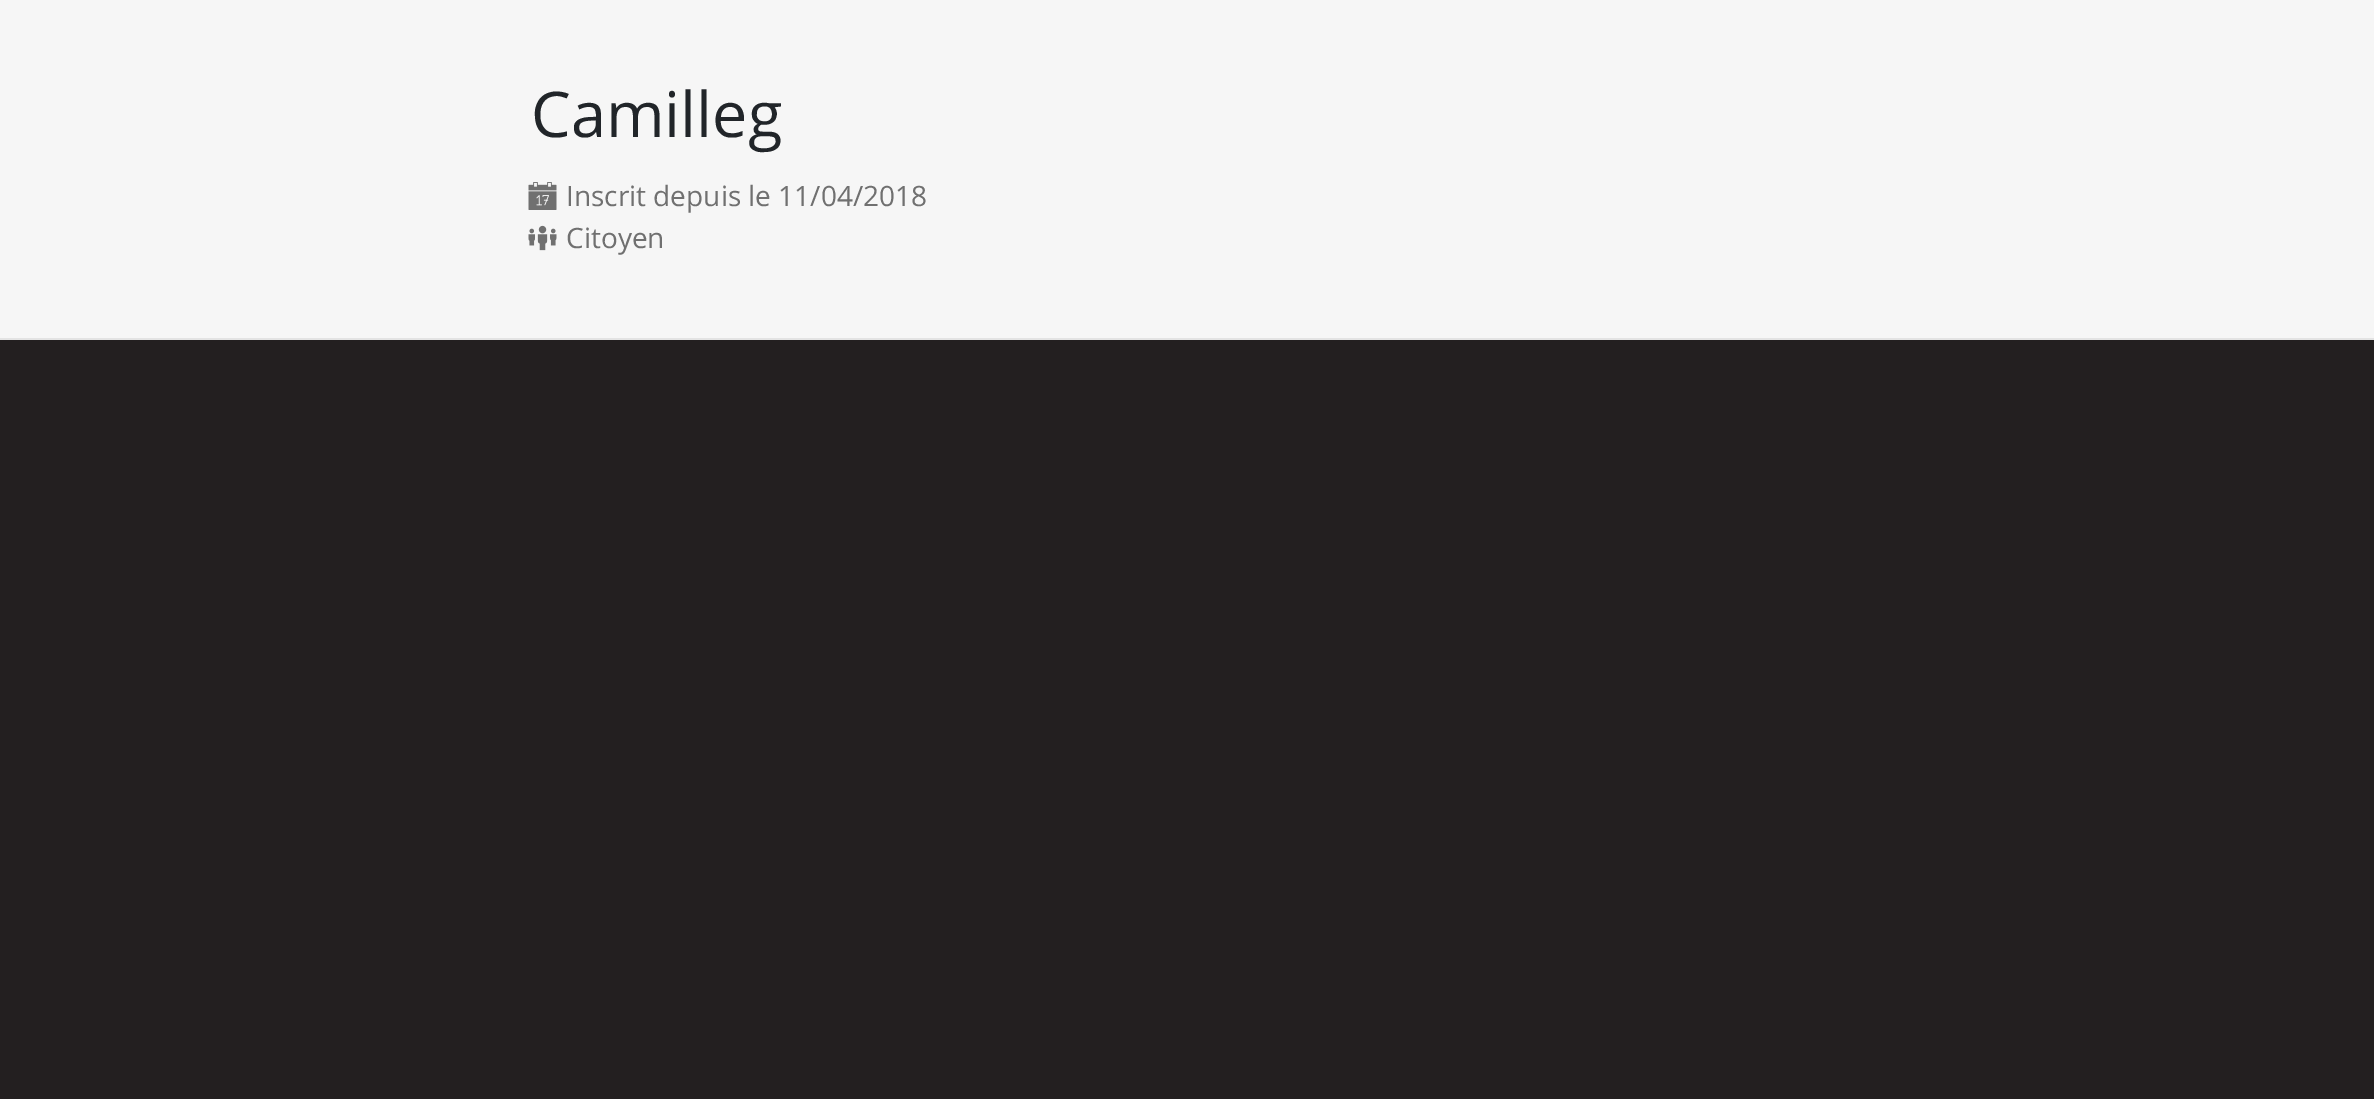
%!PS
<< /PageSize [2374 1099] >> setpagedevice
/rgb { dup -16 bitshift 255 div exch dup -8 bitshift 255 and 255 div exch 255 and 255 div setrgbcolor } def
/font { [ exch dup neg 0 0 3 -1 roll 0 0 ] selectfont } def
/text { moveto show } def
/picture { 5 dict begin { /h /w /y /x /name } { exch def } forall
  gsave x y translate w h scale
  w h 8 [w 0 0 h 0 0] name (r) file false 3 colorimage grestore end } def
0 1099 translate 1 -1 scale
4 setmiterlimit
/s1 { /OpenSans-Regular 63 font 16#212529 rgb } def
/s2 { /OpenSans-Regular 28 font 16#707070 rgb } def
16#231F20 rgb
0 0 2374 1099 rectfill
16#F6F6F6 rgb
0 0 2374 338 rectfill
s1
(Camilleg) 531 137 text
(pic1.raw) 528 182 29 28 picture
s2
(Inscrit depuis le 11/04/2018) 566 206 text
(pic2.raw) 528 225 29 26 picture
(Citoyen) 566 248 text
16#E3E3E3 rgb
0 338 2374 2 rectfill
showpage
